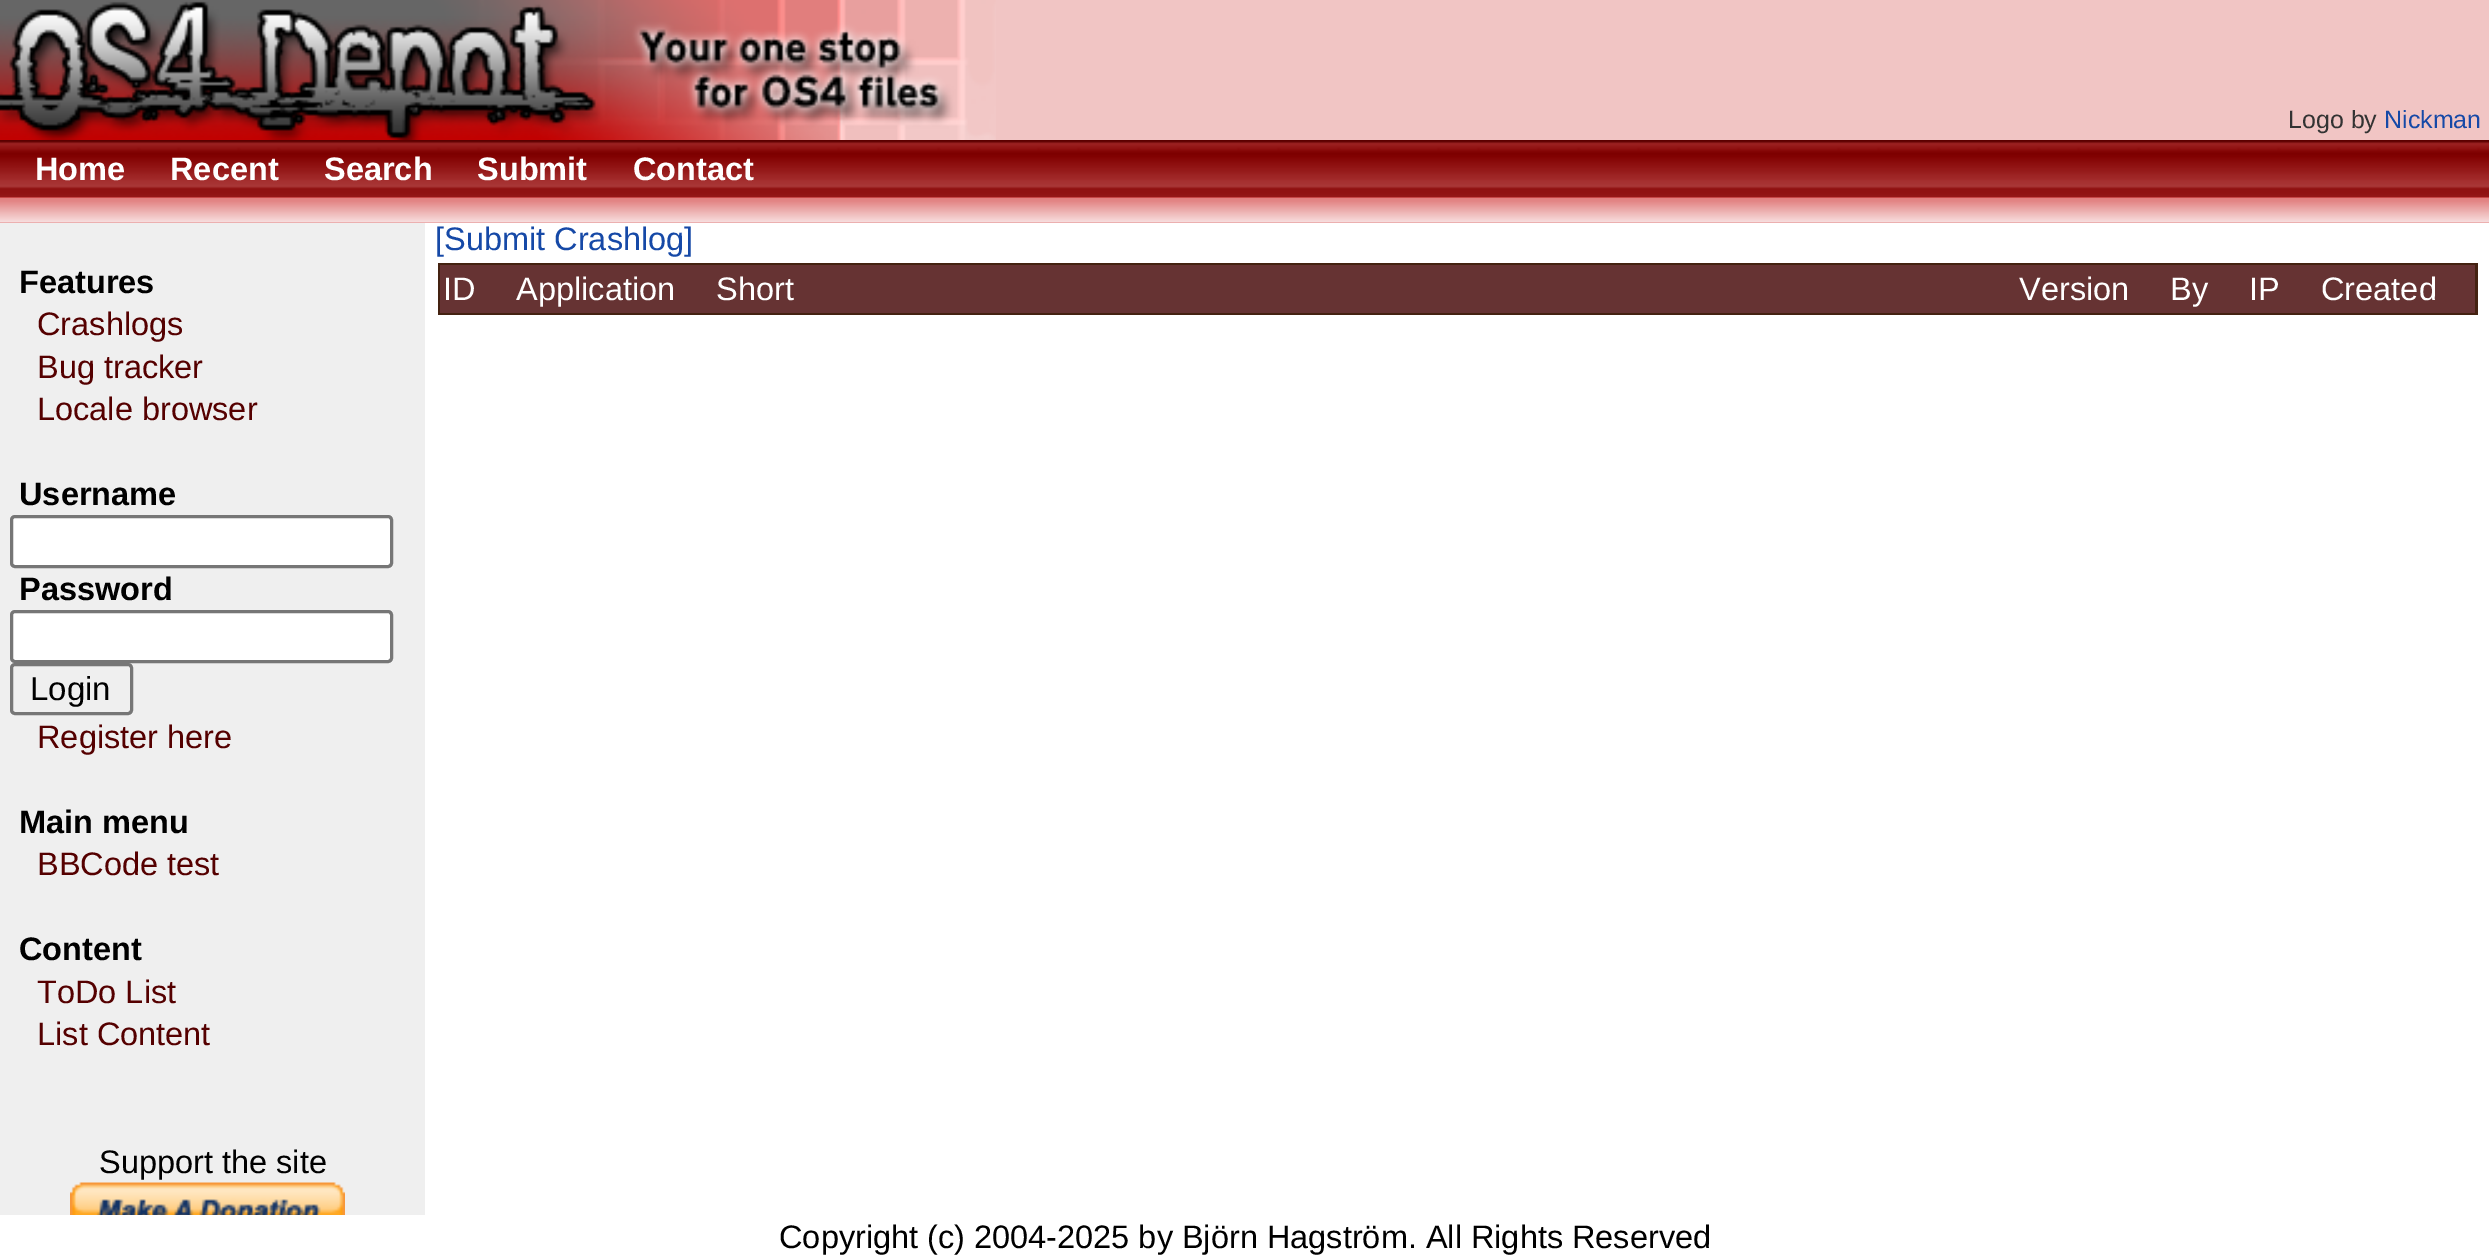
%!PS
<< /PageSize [2489 1259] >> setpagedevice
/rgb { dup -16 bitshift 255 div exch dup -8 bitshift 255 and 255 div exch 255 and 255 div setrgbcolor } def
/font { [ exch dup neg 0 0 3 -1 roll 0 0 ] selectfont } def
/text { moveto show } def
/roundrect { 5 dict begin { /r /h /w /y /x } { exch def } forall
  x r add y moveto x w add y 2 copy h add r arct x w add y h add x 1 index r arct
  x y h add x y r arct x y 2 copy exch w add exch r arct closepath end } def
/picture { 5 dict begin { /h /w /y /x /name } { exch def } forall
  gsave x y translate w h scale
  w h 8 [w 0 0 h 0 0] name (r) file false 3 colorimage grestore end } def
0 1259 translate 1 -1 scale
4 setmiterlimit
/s1 { /LiberationSans-Regular 25 font 16#333333 rgb } def
/s2 { /LiberationSans-Regular 25 font 16#1649A7 rgb } def
/s3 { /LiberationSans-Bold 32.5 font 16#FFFFFF rgb } def
/s4 { /LiberationSans-Bold 32.5 font 16#000000 rgb } def
/s5 { /LiberationSans-Regular 32.5 font 16#550000 rgb } def
/s6 { /LiberationSans-Regular 33 font 16#000000 rgb } def
/s7 { /LiberationSans-Regular 32.5 font 16#000000 rgb } def
/s8 { /LiberationSans-Regular 32.5 font 16#1649A7 rgb } def
/s9 { /LiberationSans-Regular 32.5 font 16#FFFFFF rgb } def
16#FFFFFF rgb
0 0 2489 1259 rectfill
16#F1C5C4 rgb
996 0 1493 140 rectfill
(pic1.raw) 0 0 996 140 picture
s1
(Logo by) 2288 128 text
s2
(Nickman) 2384 128 text
16#EFEFEF rgb
0 197 425 1018 rectfill
(pic4.raw) 10 197 405 1 picture
(pic6.raw) 435 197 2045 1 picture
(pic2.raw) 0 140 2489 58 picture
s3
(Home) 35 180 text
(Recent) 170 180 text
(Search) 324 180 text
(Submit) 477 180 text
(Contact) 633 180 text
16#E18080 rgb
0 222 2489 1 rectfill
(pic3.raw) 0 197 2489 26 picture
s4
(Features) 19 293 text
s5
(Crashlogs) 37 335 text
(Bug tracker) 37 378 text
(Locale browser) 37 420 text
s4
(Username) 19 505 text
16#FFFFFF rgb
11.5 516.5 380 50 3.5 roundrect gsave fill grestore
16#767676 rgb
3 setlinewidth
stroke
s4
(Password) 19 600 text
16#FFFFFF rgb
11.5 611.5 380 50 3.5 roundrect gsave fill grestore
16#767676 rgb
stroke
11.5 664.5 120 49 3.5 roundrect stroke
s6
(Login) 30 700 text
s5
(Register here) 37 748 text
s4
(Main menu) 19 833 text
s5
(BBCode test) 37 875 text
s4
(Content) 19 960 text
s5
(ToDo List) 37 1003 text
(List Content) 37 1045 text
s7
(Support the site) 99 1173 text
(pic5.raw) 70 1182 275 33 picture
s8
([Submit Crashlog]) 435 250 text
16#442211 rgb
438 263 2040 52 rectfill
16#663333 rgb
440 265 2035 48 rectfill
s9
(ID) 443 300 text
(Application) 516 300 text
(Short) 716 300 text
(Version) 2019 300 text
(By) 2170 300 text
(IP) 2249 300 text
(Created) 2321 300 text
s7
(Copyright \(c\) 2004-2025 by Björn Hagström. All Rights Reserved) 779 1248 text
showpage
